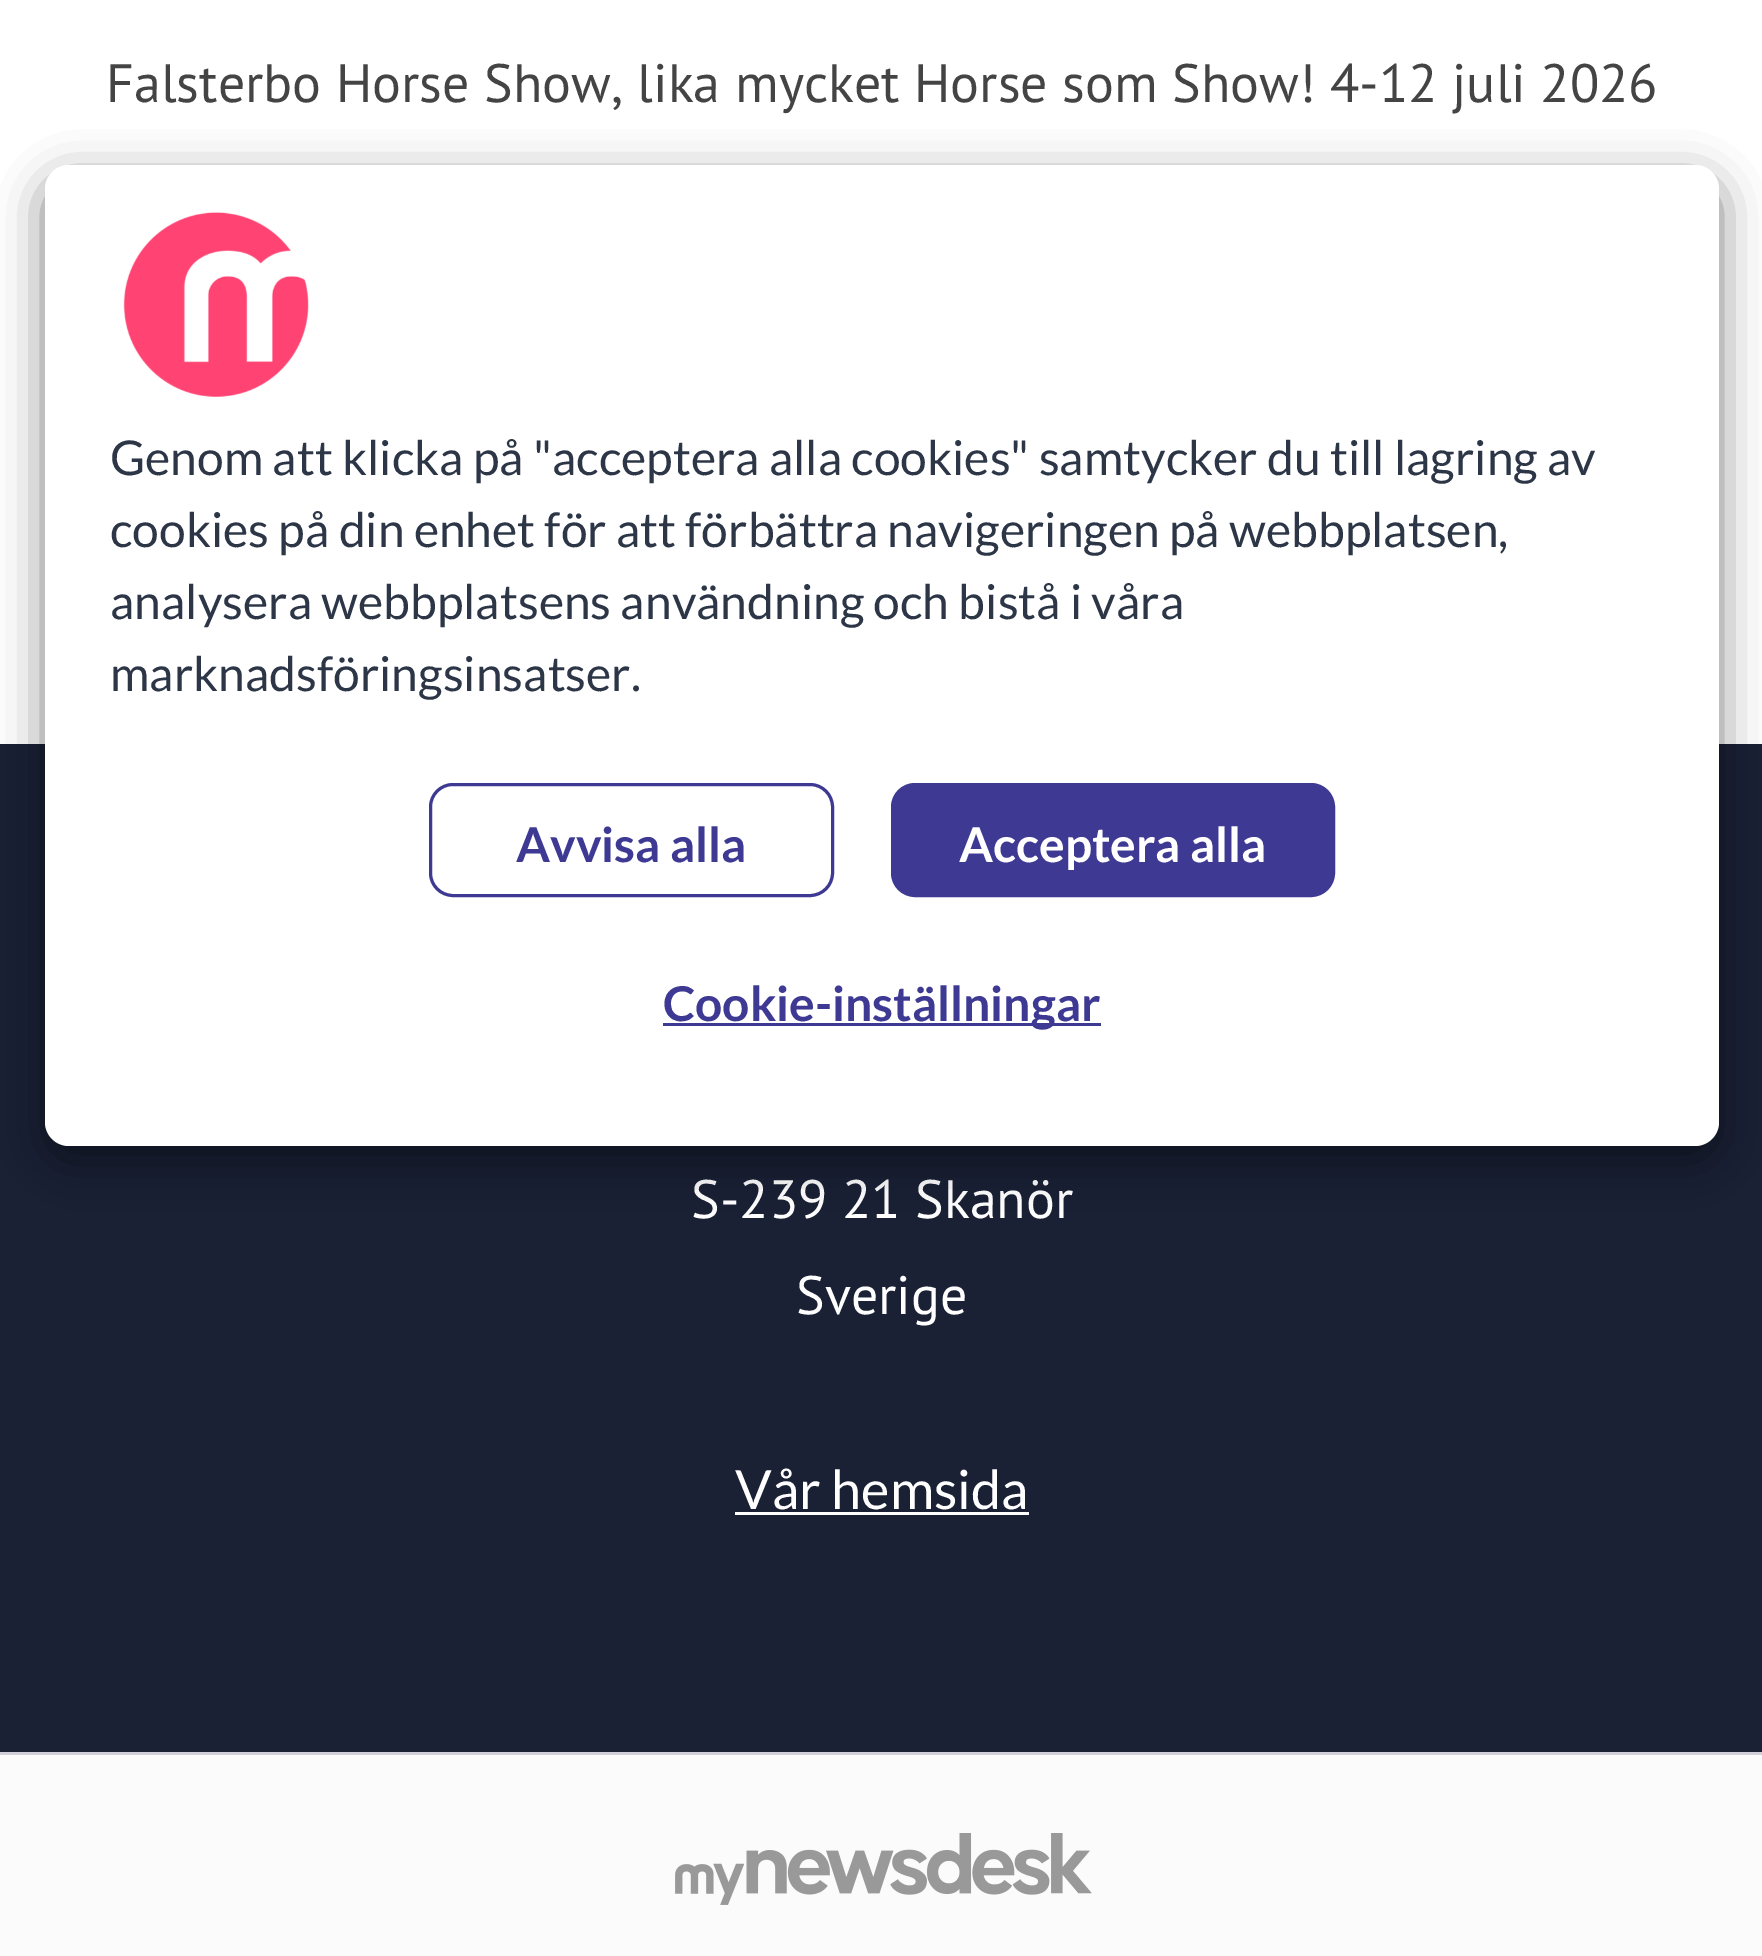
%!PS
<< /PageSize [1762 1956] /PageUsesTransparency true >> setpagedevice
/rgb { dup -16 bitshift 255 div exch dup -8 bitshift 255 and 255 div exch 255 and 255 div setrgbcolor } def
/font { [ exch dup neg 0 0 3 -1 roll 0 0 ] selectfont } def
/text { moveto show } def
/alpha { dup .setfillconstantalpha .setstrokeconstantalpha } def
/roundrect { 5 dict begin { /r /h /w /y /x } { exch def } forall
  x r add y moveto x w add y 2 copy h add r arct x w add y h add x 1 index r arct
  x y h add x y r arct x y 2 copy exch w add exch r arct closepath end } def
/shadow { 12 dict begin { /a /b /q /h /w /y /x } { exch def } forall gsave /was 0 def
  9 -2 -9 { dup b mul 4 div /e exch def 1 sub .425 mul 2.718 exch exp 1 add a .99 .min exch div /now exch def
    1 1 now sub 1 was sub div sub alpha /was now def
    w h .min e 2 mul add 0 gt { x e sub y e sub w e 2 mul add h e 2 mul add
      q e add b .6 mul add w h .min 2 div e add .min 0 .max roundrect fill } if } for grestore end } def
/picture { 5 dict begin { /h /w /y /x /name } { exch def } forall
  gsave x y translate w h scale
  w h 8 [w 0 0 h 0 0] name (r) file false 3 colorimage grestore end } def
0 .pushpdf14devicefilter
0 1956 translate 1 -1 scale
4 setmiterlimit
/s1 { /PTSans-Regular 54 font 16#444444 rgb } def
/s2 { /PTSans-Regular 54 font 16#FFFFFF rgb } def
/s3 { /Lato-Regular 54 font 16#FFFFFF rgb } def
/s4 { /Lato-Regular 48 font 16#2C3647 rgb } def
/s5 { /Lato-Bold 48 font 16#3E3A93 rgb } def
/s6 { /Lato-Bold 48 font 16#FFFFFF rgb } def
16#FBFBFB rgb
0 0 1762 1956 rectfill
16#FFFFFF rgb
0 0 1762 744 rectfill
s1
(Falsterbo Horse Show, lika mycket Horse som Show! 4-12 juli 2026) 106 102 text
16#1A2135 rgb
0 744 1762 1008 rectfill
s2
(S-239 21 Skanör) 691 1218 text
(Sverige) 796 1314 text
s3
(Vår hemsida) 735 1509 text
735 1512 294 3 rectfill
16#D1D0DA rgb
0 1752 1762 3 rectfill
(pic1.raw) 675 1833 417 72 picture
gsave
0 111 moveto 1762 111 lineto 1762 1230 lineto 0 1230 lineto closepath 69 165 moveto 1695 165 lineto 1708.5 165 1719 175.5 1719 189 curveto 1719 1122 lineto 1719 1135.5 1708.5 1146 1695 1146 curveto 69 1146 lineto 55.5 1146 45 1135.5 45 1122 curveto 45 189 lineto 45 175.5 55.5 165 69 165 curveto closepath eoclip newpath
16#000000 rgb
45 180 1674 981 24 22.5 0.5 shadow
grestore
16#FFFFFF rgb
45 165 1674 981 24 roundrect fill
(pic2.raw) 123 212 186 185 picture
s4
(Genom att klicka på "acceptera alla cookies" samtycker du till lagring av) 110 475 text
(cookies på din enhet för att förbättra navigeringen på webbplatsen,) 110 547 text
(analysera webbplatsens användning och bistå i våra) 110 619 text
(marknadsföringsinsatser.) 110 691 text
16#3E3A93 rgb
3 setlinewidth
430.5 784.5 402 111 22.5 roundrect stroke
s5
(Avvisa alla) 516 862 text
892.5 784.5 441 111 22.5 roundrect gsave fill grestore
stroke
s6
(Acceptera alla) 959 862 text
16#3E3A93 rgb
663 1023 438 3 rectfill
(Cookie-inställningar) 663 1021 text
.poppdf14devicefilter showpage
